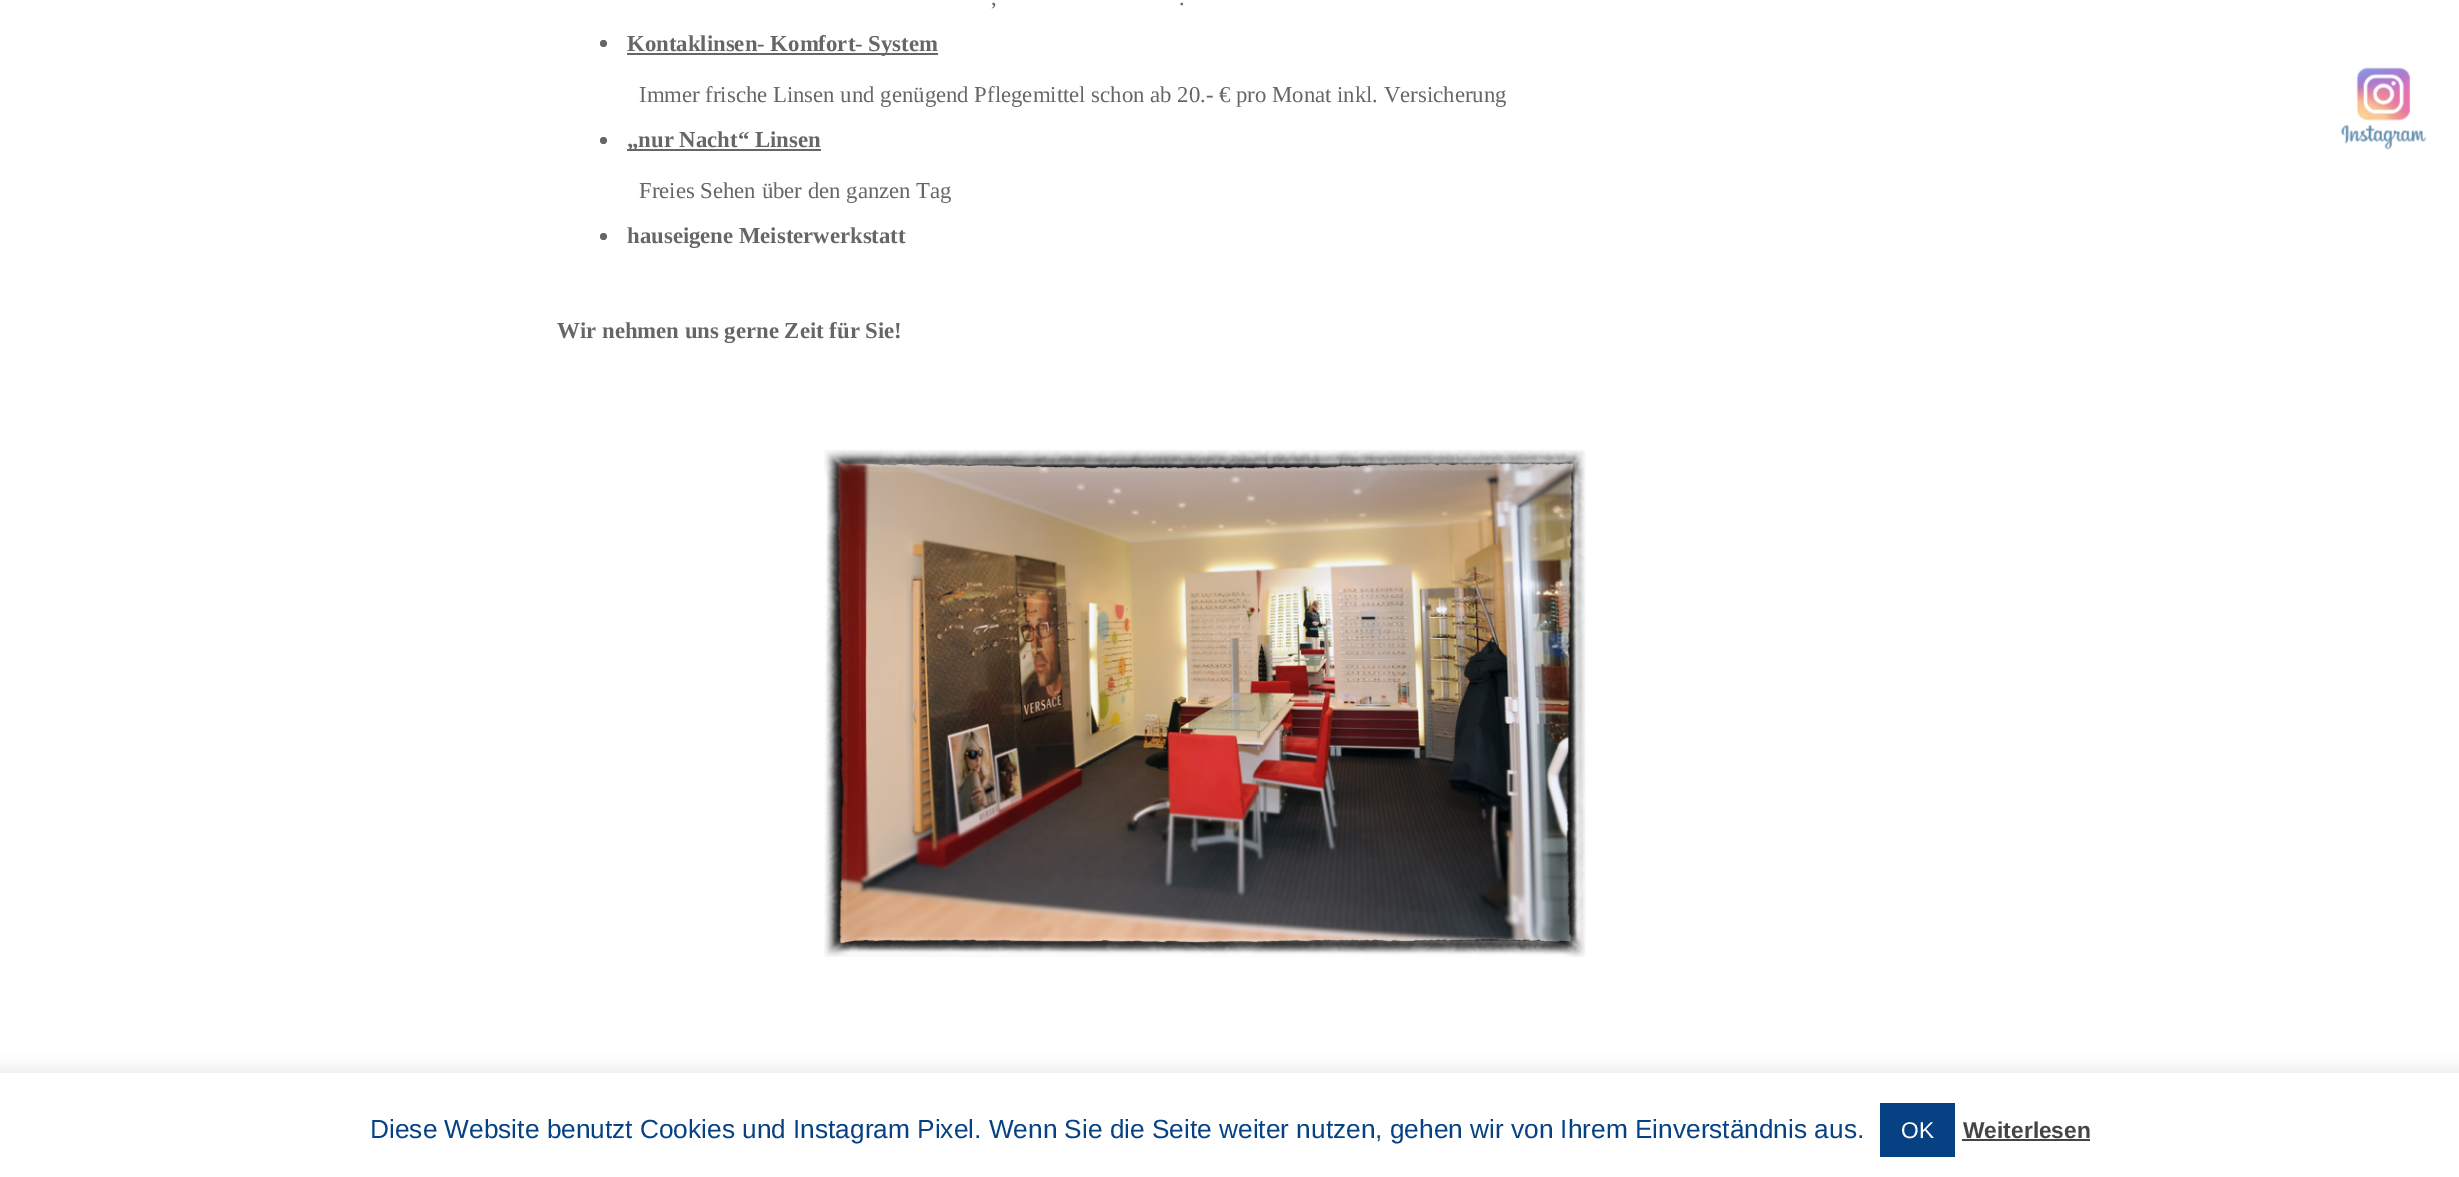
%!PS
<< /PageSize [2459 1177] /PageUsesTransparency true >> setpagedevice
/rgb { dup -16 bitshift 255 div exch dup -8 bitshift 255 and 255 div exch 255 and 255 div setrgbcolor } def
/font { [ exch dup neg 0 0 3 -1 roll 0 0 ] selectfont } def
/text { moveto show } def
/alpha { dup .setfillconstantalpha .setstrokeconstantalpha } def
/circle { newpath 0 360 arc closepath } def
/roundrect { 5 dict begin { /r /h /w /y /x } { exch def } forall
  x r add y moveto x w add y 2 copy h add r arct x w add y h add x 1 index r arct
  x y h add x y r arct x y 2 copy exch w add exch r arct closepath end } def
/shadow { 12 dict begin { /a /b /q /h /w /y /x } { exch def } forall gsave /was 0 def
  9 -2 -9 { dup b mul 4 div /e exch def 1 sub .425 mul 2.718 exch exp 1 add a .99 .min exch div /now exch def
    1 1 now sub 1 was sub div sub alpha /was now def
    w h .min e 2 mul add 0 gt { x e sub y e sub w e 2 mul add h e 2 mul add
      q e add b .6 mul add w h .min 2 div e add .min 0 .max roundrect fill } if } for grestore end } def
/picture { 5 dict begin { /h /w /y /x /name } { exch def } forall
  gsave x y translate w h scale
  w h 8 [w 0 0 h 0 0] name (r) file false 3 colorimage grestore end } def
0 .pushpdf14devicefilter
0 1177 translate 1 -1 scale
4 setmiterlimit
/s1 { /LiberationSerif-Regular 22.75 font 16#666666 rgb } def
/s2 { /LiberationSerif-Bold 22.75 font 16#666666 rgb } def
/s3 { /LiberationSans-Regular 26.25 font 16#064283 rgb } def
/s4 { /LiberationSans-Regular 22.75 font 16#FFFFFF rgb } def
/s5 { /LiberationSans-Bold 22.75 font 16#444444 rgb } def
16#FFFFFF rgb
0 0 2459 1177 rectfill
s1
(,) 991 5 text
(.) 1179 5 text
603.5 43.5 3.5 circle fill
627 53 311 2 rectfill
s2
(Kontaklinsen- Komfort- System) 627 51 text
s1
(Immer frische Linsen und genügend Pflegemittel schon ab 20.- € pro Monat inkl. Versicherung) 639 102 text
603.5 140.5 3.5 circle fill
627 149 194 2 rectfill
s2
(„nur Nacht“ Linsen) 627 147 text
s1
(Freies Sehen über den ganzen Tag) 639 198 text
603.5 236.5 3.5 circle fill
s2
(hauseigene Meisterwerkstatt) 627 243 text
(Wir nehmen uns gerne Zeit für Sie!) 557 338 text
(pic1.raw) 824 449 762 508 picture
(pic2.raw) 2340 67 86 83 picture
16#ACABAB rgb
0 1071 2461 105 0 9 0.3 shadow
16#FFFFFF rgb
0 1073 2459 104 rectfill
s3
(Diese Website benutzt Cookies und Instagram Pixel. Wenn Sie die Seite weiter nutzen, gehen wir von Ihrem Einverständnis aus.) 370 1138 text
1880 1103 75 54 rectfill
s4
(OK) 1901 1138 text
s5
(Weiterlesen) 1963 1138 text
1962 1139 128 2 rectfill
.poppdf14devicefilter showpage
